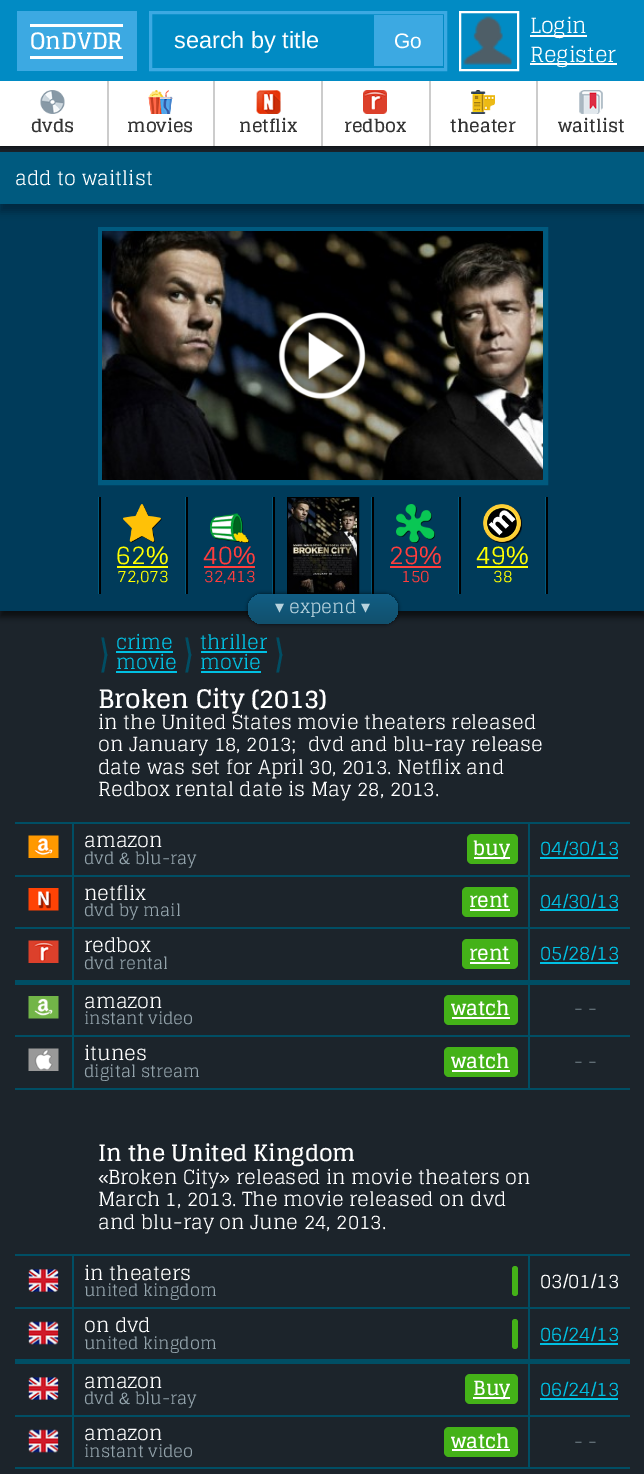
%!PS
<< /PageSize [644 1474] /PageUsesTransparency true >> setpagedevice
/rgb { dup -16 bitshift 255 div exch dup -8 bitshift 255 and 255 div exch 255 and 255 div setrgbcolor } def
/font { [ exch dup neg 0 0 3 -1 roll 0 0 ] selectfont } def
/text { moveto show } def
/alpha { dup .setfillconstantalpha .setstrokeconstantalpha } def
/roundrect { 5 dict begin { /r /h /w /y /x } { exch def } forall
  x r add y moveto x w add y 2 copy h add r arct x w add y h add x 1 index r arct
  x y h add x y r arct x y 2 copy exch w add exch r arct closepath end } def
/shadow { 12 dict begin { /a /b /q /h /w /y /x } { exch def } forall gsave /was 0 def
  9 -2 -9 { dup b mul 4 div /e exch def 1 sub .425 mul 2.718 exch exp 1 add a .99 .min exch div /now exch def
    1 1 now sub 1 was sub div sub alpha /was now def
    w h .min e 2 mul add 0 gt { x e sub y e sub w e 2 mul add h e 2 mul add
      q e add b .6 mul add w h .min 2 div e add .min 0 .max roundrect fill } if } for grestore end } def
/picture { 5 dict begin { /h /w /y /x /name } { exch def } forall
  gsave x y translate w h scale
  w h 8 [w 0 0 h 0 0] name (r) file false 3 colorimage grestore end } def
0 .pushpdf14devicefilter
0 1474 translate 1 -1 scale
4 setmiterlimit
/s1 { /Glegoo-Bold 22.5 font 16#FFFFFF rgb } def
/s2 { /LiberationSans-Regular 23.5 font 16#FFFFFF rgb } def
/s3 { /LiberationSans-Regular 21 font 16#FFFFFF rgb } def
/s4 { /Glegoo-Regular 21 font 16#FFFFFF rgb } def
/s5 { /Glegoo-Bold 18 font 16#333333 rgb } def
/s6 { /Glegoo-Regular 19.5 font 16#FFFFFF rgb } def
/s7 { /Glegoo-Regular 25.5 font 16#FFFF00 rgb } def
/s8 { /LiberationSans-Regular 25.5 font 16#FFFF00 rgb } def
/s9 { /Glegoo-Regular 16.5 font 16#FFFF00 rgb } def
/s10 { /Glegoo-Regular 25.5 font 16#FF3D3D rgb } def
/s11 { /LiberationSans-Regular 25.5 font 16#FF3D3D rgb } def
/s12 { /Glegoo-Regular 16.5 font 16#FF3D3D rgb } def
/s13 { /DejaVuSans-Regular 18 font 16#B7D2DD rgb } def
/s14 { /Glegoo-Regular 18 font 16#B7D2DD rgb } def
/s15 { /LiberationSans-Bold 24 font 16#004E64 rgb } def
/s16 { /Glegoo-Regular 19.5 font 16#00C0E3 rgb } def
/s17 { /Glegoo-Bold 25.5 font 16#FFFFFF rgb } def
/s18 { /LiberationSans-Regular 19.5 font 16#FFFFFF rgb } def
/s19 { /Glegoo-Regular 16.5 font 16#94A4AC rgb } def
/s20 { /LiberationSans-Regular 16.5 font 16#94A4AC rgb } def
/s21 { /Glegoo-Bold 19.5 font 16#FFFFFF rgb } def
/s22 { /LiberationSans-Regular 19.5 font 16#00C0E3 rgb } def
/s23 { /Glegoo-Regular 18 font 16#77868E rgb } def
16#1C242B rgb
0 0 644 1474 rectfill
16#000000 rgb
0 81 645 65 0 4 0.85 shadow
16#018BC4 rgb
0 0 644 81 rectfill
16#3CA9E2 rgb
17 11 120 60 rectfill
16#FFFFFF rgb
30 24 93 3 rectfill
30 56 93 3 rectfill
s1
(OnDVDR) 30 49 text
16#3CA9E2 rgb
3 setlinewidth
150.5 12.5 295 57 rectstroke
s2
(search by title) 174 48 text
16#3CA9E2 rgb
374 15 69 51 rectfill
s3
(Go) 394 48 text
2 setlinewidth
460 12 58 58 rectstroke
(pic1.raw) 463 16 49 49 picture
530 35 57 2 rectfill
s4
(Login) 530 33 text
530 63 87 2 rectfill
(Register) 530 62 text
0 81 644 65 rectfill
16#CCCCCC rgb
107 81 2 65 rectfill
(pic2.raw) 40 90 25 24 picture
s5
(dvds) 31 132 text
16#CCCCCC rgb
213 81 2 65 rectfill
(pic3.raw) 148 90 25 24 picture
s5
(movies) 127 132 text
16#CCCCCC rgb
321 81 2 65 rectfill
(pic4.raw) 256 90 25 24 picture
s5
(netflix) 239 132 text
16#CCCCCC rgb
429 81 2 65 rectfill
(pic5.raw) 363 90 24 24 picture
s5
(redbox) 344 132 text
16#CCCCCC rgb
536 81 2 65 rectfill
(pic6.raw) 471 90 24 24 picture
s5
(theater) 450 132 text
(pic7.raw) 579 90 24 24 picture
(waitlist) 558 132 text
16#000000 rgb
0 158 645 459 0 3 0.6 shadow
16#003B5A rgb
0 204 644 407 rectfill
16#000000 rgb
0 159 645 53 0 4 0.3 shadow
16#005A7F rgb
0 152 644 52 rectfill
s6
(add to waitlist) 15 185 text
16#005A7F rgb
5 setlinewidth
100.5 229.5 445 253 rectstroke
(pic8.raw) 102 231 441 249 picture
(pic9.raw) 278 312 88 87 picture
98 497 1 97 rectfill
16#000000 rgb
99 497 2 97 rectfill
(pic10.raw) 123 504 39 39 picture
s7
(62) 116 564 text
117 566 51 2 rectfill
s8
(%) 146 564 text
s9
(72,073) 117 582 text
16#005A7F rgb
185 497 1 97 rectfill
16#000000 rgb
186 497 2 97 rectfill
(pic11.raw) 210 513 39 30 picture
s10
(40) 203 564 text
204 566 51 2 rectfill
s11
(%) 233 564 text
s12
(32,413) 204 582 text
16#005A7F rgb
272 497 1 97 rectfill
16#000000 rgb
273 497 2 97 rectfill
2 setlinewidth
288 498 70 95 rectstroke
(pic12.raw) 288 498 69 95 picture
16#005A7F rgb
371 497 1 97 rectfill
16#000000 rgb
372 497 2 97 rectfill
(pic13.raw) 396 504 39 39 picture
s10
(29) 389 564 text
390 566 51 2 rectfill
s11
(%) 419 564 text
s12
(150) 401 582 text
16#005A7F rgb
458 497 1 97 rectfill
16#000000 rgb
459 497 2 97 rectfill
(pic14.raw) 483 504 39 39 picture
s7
(49) 476 564 text
477 566 51 2 rectfill
s8
(%) 506 564 text
s9
(38) 493 582 text
16#005A7F rgb
545 497 1 97 rectfill
16#000000 rgb
546 497 2 97 rectfill
248 594 150 30 15 2 0.7 shadow
gsave 248 594 150 30 15 roundrect clip newpath
<< /ShadingType 2 /ColorSpace /DeviceRGB /Coords [323 594 323 624] /Extend [true true] /Function << /FunctionType 2 /Domain [0 1] /C0 [0.067 0.369 0.518] /C1 [0.071 0.314 0.427] /N 1 >> >> shfill grestore
s13
(▾) 275 613 text
s14
(expend) 289 613 text
s13
(▾) 361 613 text
s15
(\\) 101 655 text
(/) 101 672 text
s16
(crime) 116 649 text
116 651 57 2 rectfill
(movie) 116 669 text
116 671 61 2 rectfill
s15
(\\) 185 655 text
(/) 185 672 text
s16
(thriller) 200 649 text
201 651 66 2 rectfill
(movie) 200 669 text
201 671 60 2 rectfill
s15
(\\) 276 655 text
(/) 276 672 text
s17
(Broken City \(2013\)) 98 708 text
s6
(in the United States movie theaters released) 98 729 text
(on January 18, 2013) 98 751 text
s18
(;) 291 751 text
s6
(dvd and blu-ray release) 308 751 text
(date was set for April 30, 2013. Netflix and) 98 774 text
(Redbox rental date is May 28, 2013.) 98 796 text
16#004E64 rgb
15 822 615 2 rectfill
15 875 615 2 rectfill
(pic15.raw) 28 835 31 23 picture
72 824 2 51 rectfill
s6
(amazon) 84 847 text
s19
(dvd) 84 864 text
s20
(&) 119 864 text
s19
(blu-ray) 135 864 text
16#44B218 rgb
467 834 51 30 5 roundrect fill
16#FFFFFF rgb
474 857 36 2 rectfill
s21
(buy) 473 855 text
16#004E64 rgb
528 824 2 51 rectfill
s16
(04 30 13) 540 855 text
s22
(/) 563 855 text
(/) 591 855 text
540 857 78 2 rectfill
16#004E64 rgb
15 927 615 2 rectfill
(pic16.raw) 28 888 31 23 picture
72 876 2 51 rectfill
s6
(netflix) 84 900 text
s19
(dvd by mail) 84 916 text
16#44B218 rgb
462 887 56 30 5 roundrect fill
s21
(rent) 469 907 text
470 909 40 2 rectfill
16#004E64 rgb
528 876 2 51 rectfill
s16
(04 30 13) 540 908 text
s22
(/) 563 908 text
(/) 591 908 text
540 909 78 2 rectfill
16#004E64 rgb
15 980 615 5 rectfill
(pic17.raw) 28 940 31 23 picture
72 929 2 51 rectfill
s6
(redbox) 84 952 text
s19
(dvd rental) 84 969 text
16#44B218 rgb
462 939 56 30 5 roundrect fill
s21
(rent) 469 960 text
470 962 40 2 rectfill
16#004E64 rgb
528 929 2 51 rectfill
s16
(05 28 13) 540 960 text
s22
(/) 563 960 text
(/) 591 960 text
540 962 78 2 rectfill
16#004E64 rgb
15 1035 615 2 rectfill
(pic18.raw) 28 996 31 23 picture
72 984 2 51 rectfill
s6
(amazon) 84 1008 text
s19
(instant video) 84 1024 text
16#44B218 rgb
444 995 74 30 5 roundrect fill
s21
(watch) 451 1015 text
452 1017 58 2 rectfill
16#004E64 rgb
528 984 2 51 rectfill
s23
(- -) 574 1015 text
16#004E64 rgb
15 1088 615 2 rectfill
(pic19.raw) 28 1048 31 23 picture
72 1037 2 51 rectfill
s6
(itunes) 84 1060 text
s19
(digital stream) 84 1077 text
16#44B218 rgb
444 1047 74 30 5 roundrect fill
s21
(watch) 451 1068 text
452 1070 58 2 rectfill
16#004E64 rgb
528 1037 2 51 rectfill
s23
(- -) 574 1068 text
s1
(In the United Kingdom) 98 1161 text
s18
(«) 98 1184 text
s6
(Broken City) 108 1184 text
s18
(») 219 1184 text
s6
(released in movie theaters on) 236 1184 text
(March 1, 2013. The movie released on dvd) 98 1206 text
(and blu-ray on June 24, 2013.) 98 1229 text
16#004E64 rgb
15 1254 615 2 rectfill
15 1307 615 2 rectfill
(pic20.raw) 28 1269 31 23 picture
72 1256 2 51 rectfill
s6
(in theaters) 84 1280 text
s19
(united kingdom) 84 1296 text
16#44B218 rgb
512 1266 6 30 3 roundrect fill
16#004E64 rgb
528 1256 2 51 rectfill
s6
(03 01 13) 540 1288 text
s18
(/) 563 1288 text
(/) 591 1288 text
16#004E64 rgb
15 1359 615 5 rectfill
(pic21.raw) 28 1321 31 24 picture
72 1308 2 51 rectfill
s6
(on dvd) 84 1332 text
s19
(united kingdom) 84 1349 text
16#44B218 rgb
512 1319 6 30 3 roundrect fill
16#004E64 rgb
528 1308 2 51 rectfill
s16
(06 24 13) 540 1341 text
s22
(/) 563 1341 text
(/) 591 1341 text
540 1343 78 2 rectfill
16#004E64 rgb
15 1415 615 2 rectfill
(pic20.raw) 28 1377 31 23 picture
72 1364 2 51 rectfill
s6
(amazon) 84 1388 text
s19
(dvd) 84 1404 text
s20
(&) 119 1404 text
s19
(blu-ray) 135 1404 text
16#44B218 rgb
465 1374 53 30 5 roundrect fill
16#FFFFFF rgb
473 1397 37 2 rectfill
s21
(Buy) 473 1395 text
16#004E64 rgb
528 1364 2 51 rectfill
s16
(06 24 13) 540 1396 text
s22
(/) 563 1396 text
(/) 591 1396 text
540 1398 78 2 rectfill
16#004E64 rgb
15 1467 615 2 rectfill
(pic21.raw) 28 1429 31 24 picture
72 1416 2 51 rectfill
s6
(amazon) 84 1440 text
s19
(instant video) 84 1457 text
16#44B218 rgb
444 1427 74 30 5 roundrect fill
s21
(watch) 451 1448 text
452 1449 58 2 rectfill
16#004E64 rgb
528 1416 2 51 rectfill
s23
(- -) 574 1448 text
.poppdf14devicefilter showpage
